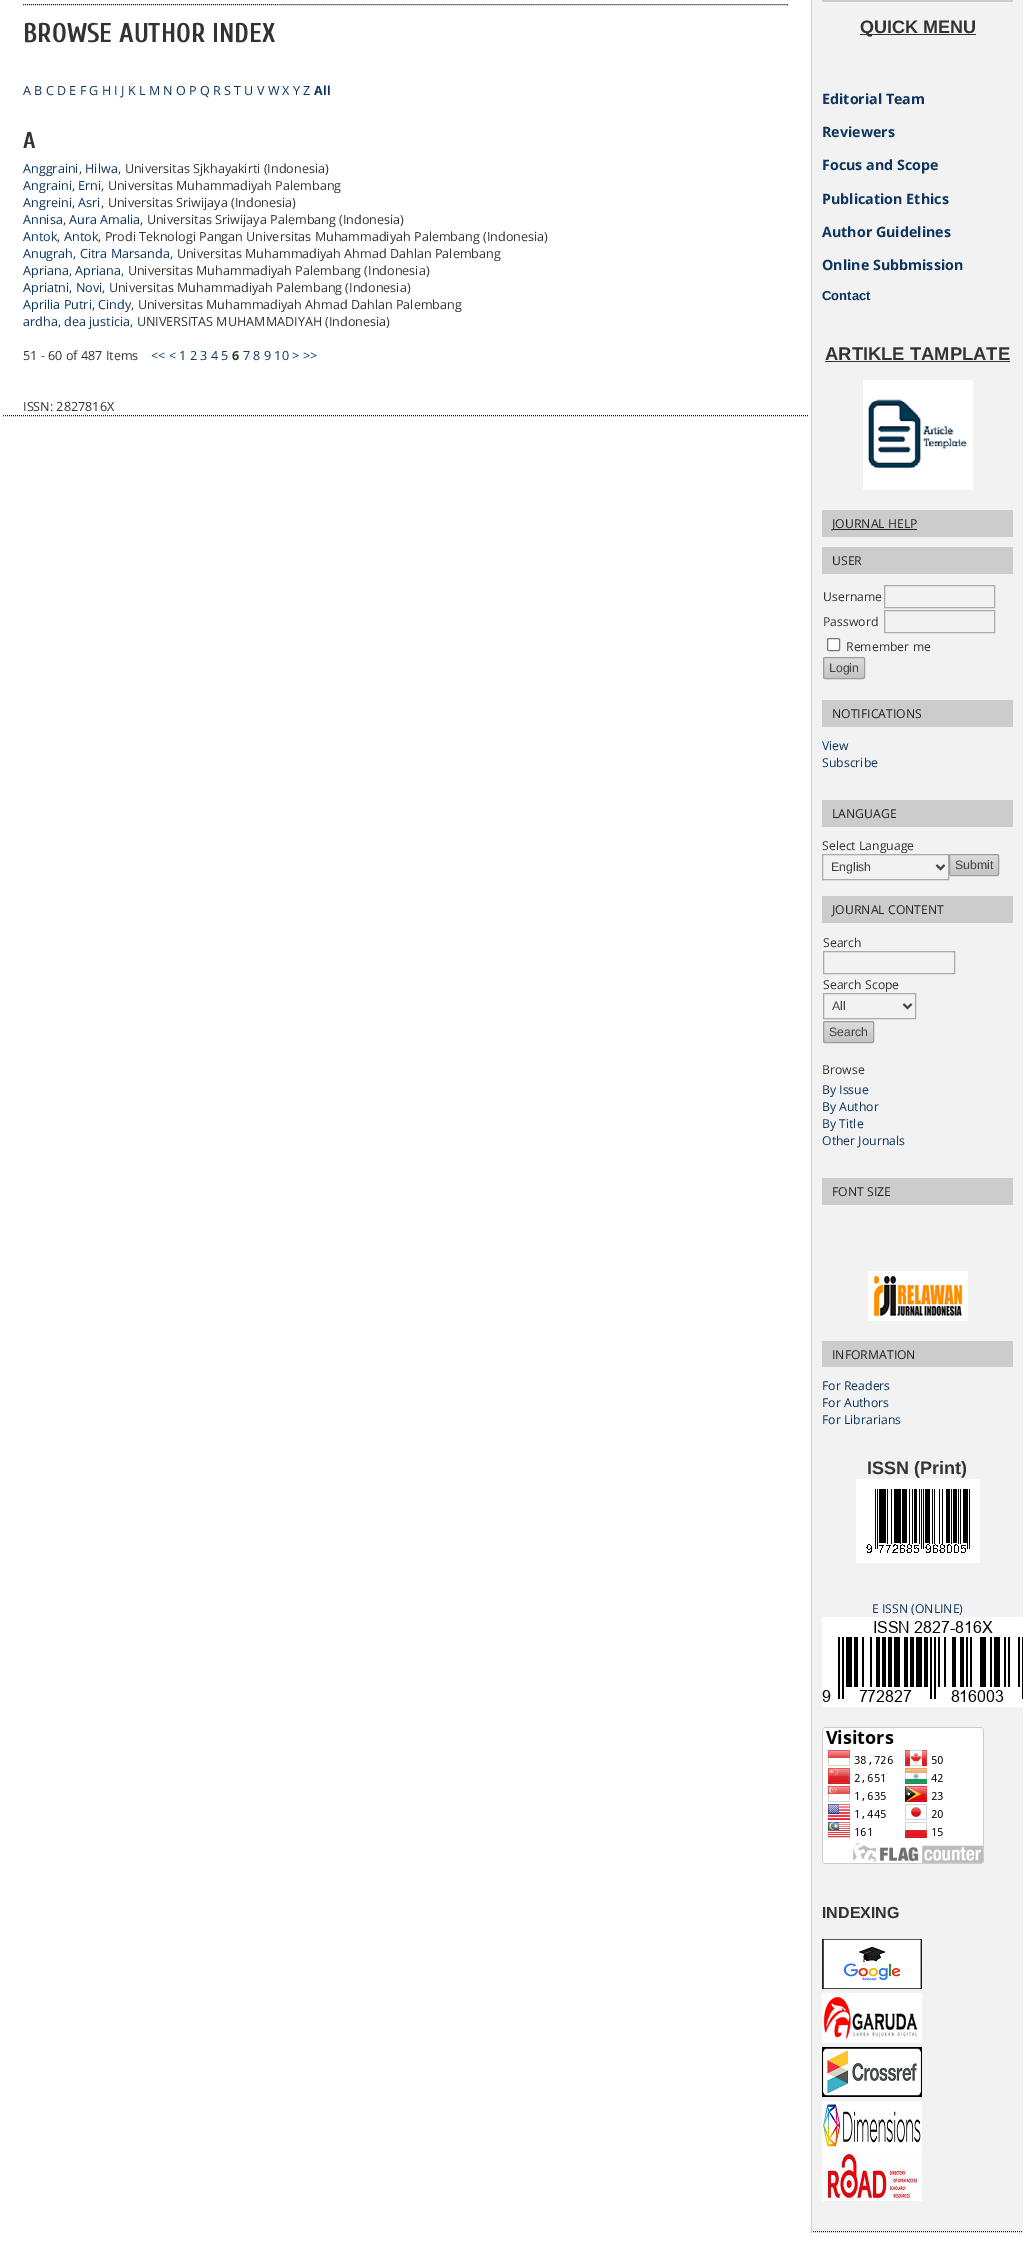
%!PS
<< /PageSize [1026 2252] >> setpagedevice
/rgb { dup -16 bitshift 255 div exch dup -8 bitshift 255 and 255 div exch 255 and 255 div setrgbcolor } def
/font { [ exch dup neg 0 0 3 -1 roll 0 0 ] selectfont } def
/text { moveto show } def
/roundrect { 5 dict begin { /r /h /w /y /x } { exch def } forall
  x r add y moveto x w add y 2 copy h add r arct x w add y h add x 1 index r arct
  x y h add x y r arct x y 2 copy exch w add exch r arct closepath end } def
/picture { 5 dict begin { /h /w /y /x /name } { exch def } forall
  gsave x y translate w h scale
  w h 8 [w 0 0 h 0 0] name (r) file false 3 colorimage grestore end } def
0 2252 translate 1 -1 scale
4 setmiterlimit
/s1 { /Cuprum-Bold 27 font 16#333333 rgb } def
/s2 { /OpenSans-Regular 12.6 font 16#0D355E rgb } def
/s3 { /OpenSans-Bold 12.6 font 16#0D355E rgb } def
/s4 { /Cuprum-Bold 23 font 16#333333 rgb } def
/s5 { /OpenSans-Regular 12.6 font 16#333333 rgb } def
/s6 { /OpenSans-Bold 12.6 font 16#333333 rgb } def
/s7 { /LiberationSans-Bold 18 font 16#333333 rgb } def
/s8 { /OpenSans-Bold 14.25 font 16#0D355E rgb } def
/s9 { /LiberationSans-Bold 13 font 16#0D355E rgb } def
/s10 { /LiberationSans-Bold 18.4 font 16#333333 rgb } def
/s11 { /OpenSans-Regular 12.25 font 16#222222 rgb } def
/s12 { /OpenSans-Regular 12.25 font 16#333333 rgb } def
/s13 { /LiberationSans-Regular 12.25 font 16#444444 rgb } def
/s14 { /OpenSans-Regular 12.25 font 16#0D355E rgb } def
/s15 { /LiberationSans-Bold 16 font 16#333333 rgb } def
16#FFFFFF rgb
0 0 1026 2252 rectfill
16#660000 rgb
[1 1] 0 setdash
3 415.5 moveto 808 415.5 lineto stroke
16#333333 rgb
23 4.5 moveto 788 4.5 lineto stroke
s1
(BROWSE AUTHOR INDEX) 23 42 text
s2
(A B C D E F G H I J K L M N O P Q R S T U V W X Y Z) 23 95 text
s3
(All) 314 95 text
s4
(A) 23 148 text
s2
(Anggraini, Hilwa) 23 173 text
s5
(, Universitas Sjkhayakirti \(Indonesia\)) 118 173 text
s2
(Angraini, Erni) 23 190 text
s5
(, Universitas Muhammadiyah Palembang) 101 190 text
s2
(Angreini, Asri) 23 207 text
s5
(, Universitas Sriwijaya \(Indonesia\)) 101 207 text
s2
(Annisa, Aura Amalia) 23 224 text
s5
(, Universitas Sriwijaya Palembang \(Indonesia\)) 140 224 text
s2
(Antok, Antok) 23 241 text
s5
(, Prodi Teknologi Pangan Universitas Muhammadiyah Palembang \(Indonesia\)) 98 241 text
s2
(Anugrah, Citra Marsanda) 23 258 text
s5
(, Universitas Muhammadiyah Ahmad Dahlan Palembang) 170 258 text
s2
(Apriana, Apriana) 23 275 text
s5
(, Universitas Muhammadiyah Palembang \(Indonesia\)) 121 275 text
s2
(Apriatni, Novi) 23 292 text
s5
(, Universitas Muhammadiyah Palembang \(Indonesia\)) 102 292 text
s2
(Aprilia Putri, Cindy) 23 309 text
s5
(, Universitas Muhammadiyah Ahmad Dahlan Palembang) 131 309 text
s2
(ardha, dea justicia) 23 326 text
s5
(, UNIVERSITAS MUHAMMADIYAH \(Indonesia\)) 130 326 text
(51 - 60 of 487 Items) 23 360 text
s2
(<< < 1 2 3 4 5) 151 360 text
s6
(6) 232 360 text
s2
(7 8 9 10 > >>) 243 360 text
s5
(ISSN: 2827816X) 23 411 text
16#F2F2F2 rgb
812 0 211 2232 rectfill
16#660000 rgb
811 2231.5 moveto 1023 2231.5 lineto stroke
16#CCCCCC rgb
811 0 1 2232 rectfill
822 0 191 2 rectfill
16#333333 rgb
860 34 116 1 rectfill
s7
(QUICK MENU) 860 33 text
s8
(Editorial Team) 822 104 text
(Reviewers) 822 137 text
(Focus and Scope) 822 170 text
(Publication Ethics) 822 204 text
(Author Guidelines) 822 237 text
(Online Subbmission) 822 270 text
s9
(Contact) 822 300 text
s10
(ARTIKLE TAMPLATE) 825 360 text
825 361 185 1 rectfill
(pic1.raw) 863 380 110 110 picture
16#CCCCCC rgb
822 510 191 27 rectfill
16#222222 rgb
832 529 85 1 rectfill
s11
(JOURNAL HELP) 832 528 text
16#CCCCCC rgb
822 547 191 27 rectfill
s11
(USER) 832 565 text
s12
(Username) 823 601 text
16#AAAAAA rgb
[] 0 setdash
884.5 585.5 110 22 rectstroke
s12
(Password) 823 626 text
16#AAAAAA rgb
884.5 610.5 110 22 rectstroke
16#FFFFFF rgb
827.5 638.5 12 12 1.5 roundrect gsave fill grestore
16#767676 rgb
stroke
s12
(Remember me) 846 651 text
gsave
823 657 42 22 2 roundrect clip newpath
gsave 823 658 moveto 865 658 lineto 865 678 lineto 823 678 lineto closepath clip newpath
<< /ShadingType 2 /ColorSpace /DeviceRGB /Coords [844 658 844 678] /Extend [true true] /Function << /FunctionType 2 /Domain [0 1] /C0 [0.867 0.867 0.867] /C1 [0.769 0.769 0.769] /N 1 >> >> shfill grestore
grestore
16#9D9D9D rgb
823.5 657.5 41 21 1.5 roundrect stroke
s13
(Login) 829 672 text
16#CCCCCC rgb
822 700 191 27 rectfill
s11
(NOTIFICATIONS) 832 718 text
s14
(View) 822 750 text
(Subscribe) 822 767 text
16#CCCCCC rgb
822 800 191 27 rectfill
s11
(LANGUAGE) 832 818 text
s12
(Select Language) 822 850 text
16#AAAAAA rgb
822.5 854.5 126 25 rectstroke
16#444444 rgb
2 setlinewidth
936.5 865 moveto 940.5 869 lineto 944.5 865 lineto stroke
s13
(English) 831 871 text
gsave
949 854 50 22 2 roundrect clip newpath
gsave 949 855 moveto 999 855 lineto 999 875 lineto 949 875 lineto closepath clip newpath
<< /ShadingType 2 /ColorSpace /DeviceRGB /Coords [974 855 974 875] /Extend [true true] /Function << /FunctionType 2 /Domain [0 1] /C0 [0.867 0.867 0.867] /C1 [0.769 0.769 0.769] /N 1 >> >> shfill grestore
grestore
16#9D9D9D rgb
1 setlinewidth
949.5 854.5 49 21 1.5 roundrect stroke
s13
(Submit) 955 869 text
16#CCCCCC rgb
822 896 191 27 rectfill
s11
(JOURNAL CONTENT) 832 914 text
s12
(Search) 823 947 text
16#AAAAAA rgb
823.5 951.5 131 22 rectstroke
s12
(Search Scope) 823 989 text
16#AAAAAA rgb
823.5 993.5 92 25 rectstroke
16#444444 rgb
2 setlinewidth
903.5 1004 moveto 907.5 1008 lineto 911.5 1004 lineto stroke
s13
(All) 832 1010 text
gsave
823 1021 51 22 2 roundrect clip newpath
gsave 823 1022 moveto 874 1022 lineto 874 1042 lineto 823 1042 lineto closepath clip newpath
<< /ShadingType 2 /ColorSpace /DeviceRGB /Coords [849 1022 849 1042] /Extend [true true] /Function << /FunctionType 2 /Domain [0 1] /C0 [0.867 0.867 0.867] /C1 [0.769 0.769 0.769] /N 1 >> >> shfill grestore
grestore
16#9D9D9D rgb
1 setlinewidth
823.5 1021.5 50 21 1.5 roundrect stroke
s13
(Search) 829 1036 text
s12
(Browse) 822 1074 text
s14
(By Issue) 822 1094 text
(By Author) 822 1111 text
(By Title) 822 1128 text
(Other Journals) 822 1145 text
16#CCCCCC rgb
822 1178 191 27 rectfill
s11
(FONT SIZE) 832 1196 text
(pic2.raw) 868 1271 100 50 picture
16#CCCCCC rgb
822 1341 191 26 rectfill
s11
(INFORMATION) 832 1359 text
s14
(For Readers) 822 1390 text
(For Authors) 822 1407 text
(For Librarians) 822 1424 text
s7
(ISSN \(Print\)) 867 1474 text
(pic3.raw) 856 1479 124 84 picture
s14
(E ISSN \(ONLINE\)) 872 1613 text
(pic4.raw) 822 1617 201 90 picture
(pic5.raw) 822 1727 162 137 picture
s15
(INDEXING) 822 1918 text
(pic6.raw) 822 1939 100 50 picture
(pic7.raw) 822 1993 100 50 picture
(pic8.raw) 822 2047 100 50 picture
(pic9.raw) 822 2101 100 50 picture
(pic10.raw) 822 2151 100 50 picture
showpage
